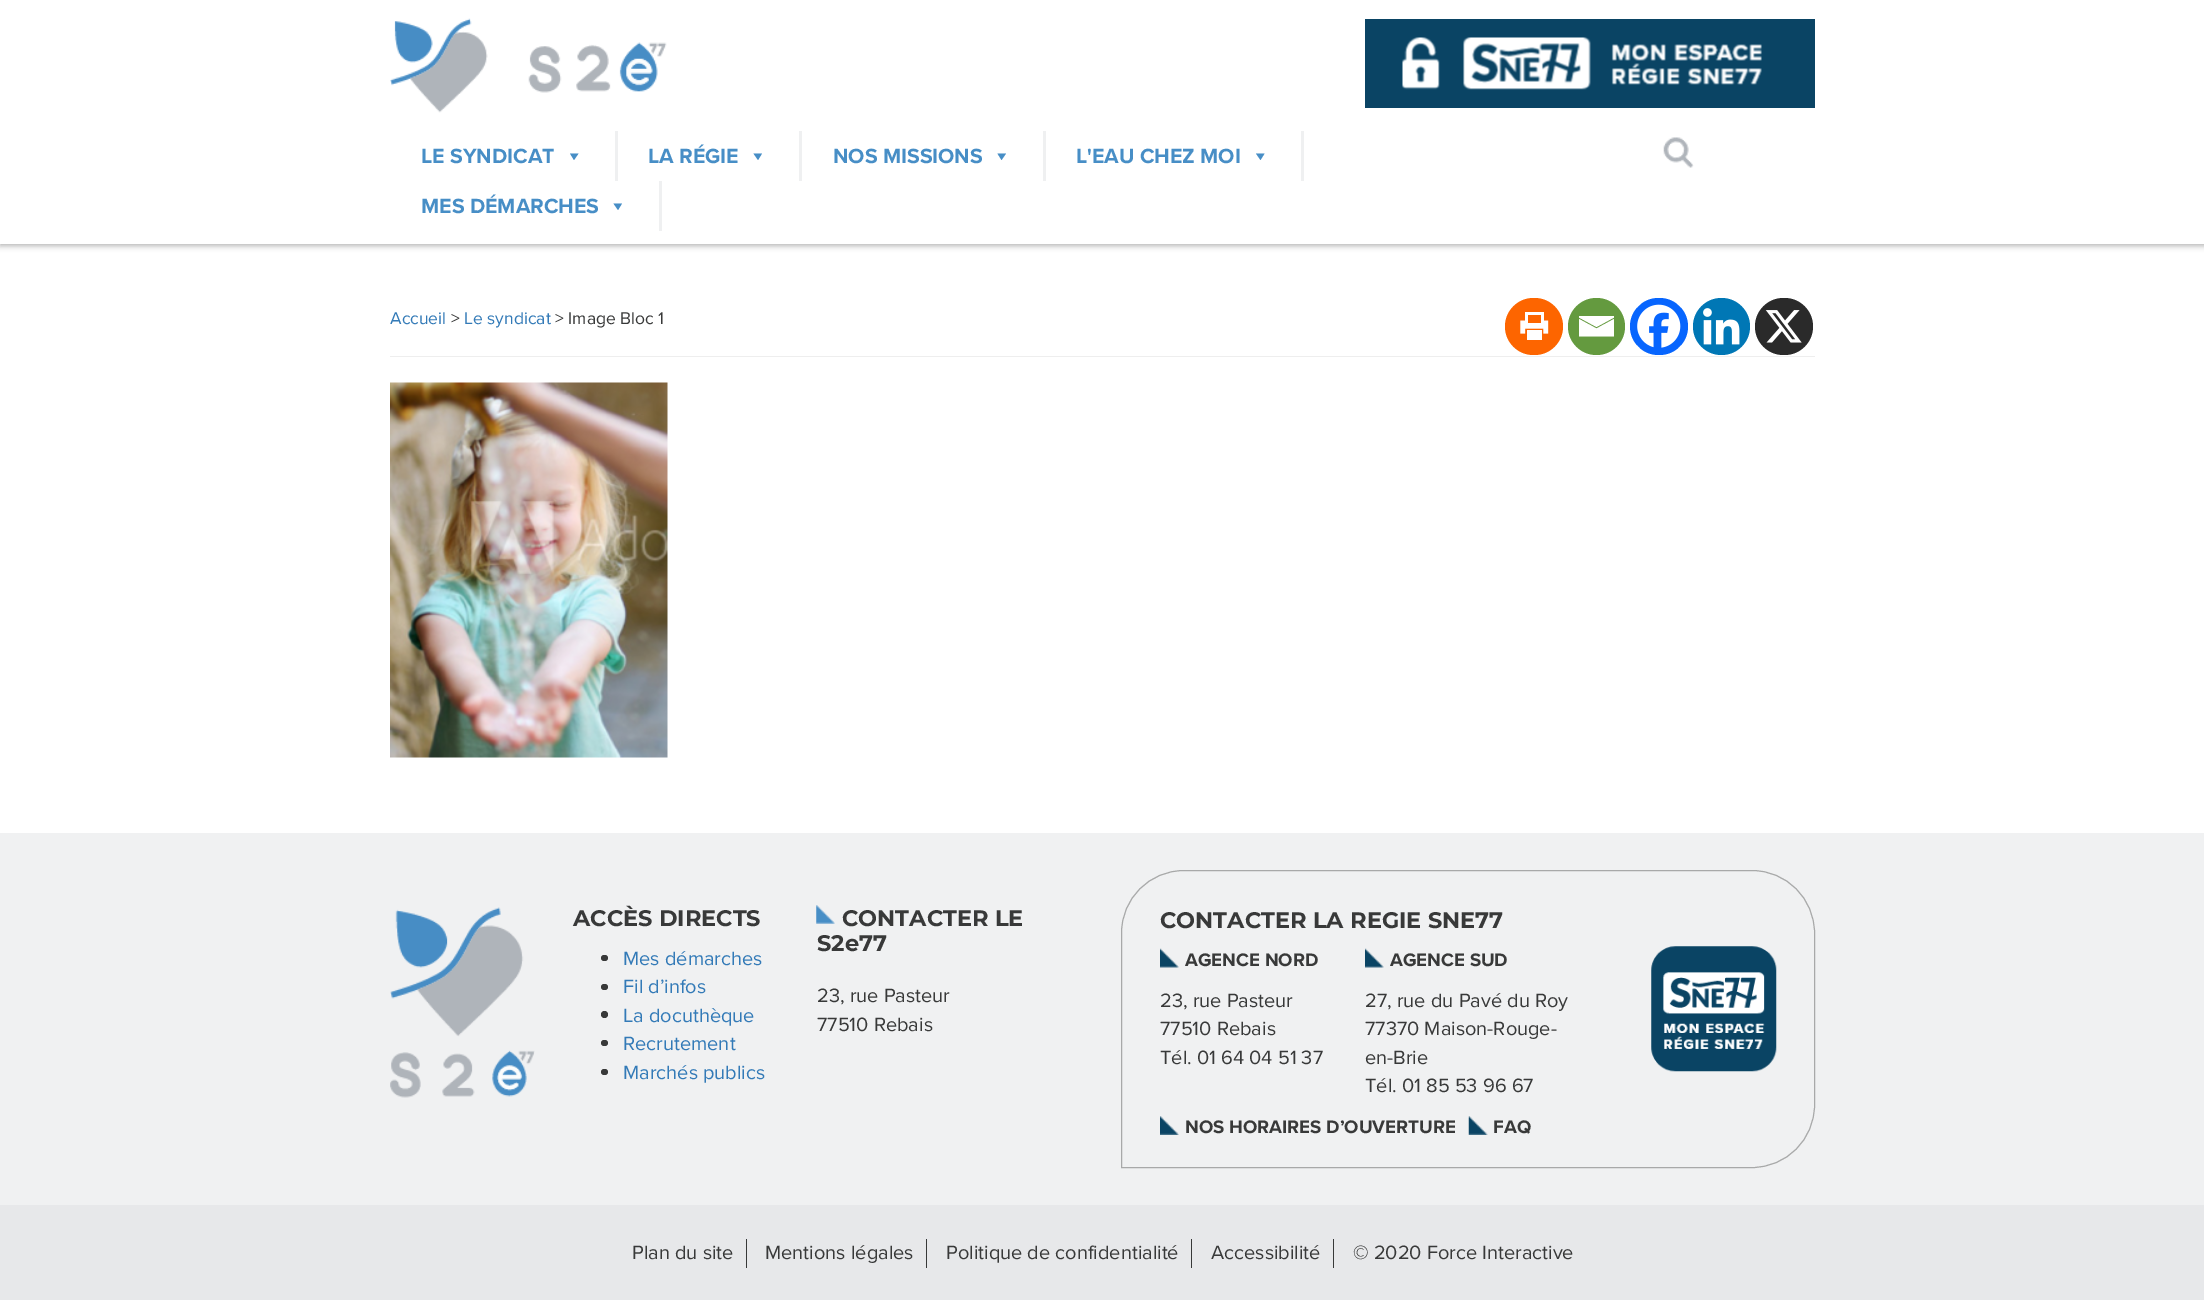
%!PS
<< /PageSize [2204 1311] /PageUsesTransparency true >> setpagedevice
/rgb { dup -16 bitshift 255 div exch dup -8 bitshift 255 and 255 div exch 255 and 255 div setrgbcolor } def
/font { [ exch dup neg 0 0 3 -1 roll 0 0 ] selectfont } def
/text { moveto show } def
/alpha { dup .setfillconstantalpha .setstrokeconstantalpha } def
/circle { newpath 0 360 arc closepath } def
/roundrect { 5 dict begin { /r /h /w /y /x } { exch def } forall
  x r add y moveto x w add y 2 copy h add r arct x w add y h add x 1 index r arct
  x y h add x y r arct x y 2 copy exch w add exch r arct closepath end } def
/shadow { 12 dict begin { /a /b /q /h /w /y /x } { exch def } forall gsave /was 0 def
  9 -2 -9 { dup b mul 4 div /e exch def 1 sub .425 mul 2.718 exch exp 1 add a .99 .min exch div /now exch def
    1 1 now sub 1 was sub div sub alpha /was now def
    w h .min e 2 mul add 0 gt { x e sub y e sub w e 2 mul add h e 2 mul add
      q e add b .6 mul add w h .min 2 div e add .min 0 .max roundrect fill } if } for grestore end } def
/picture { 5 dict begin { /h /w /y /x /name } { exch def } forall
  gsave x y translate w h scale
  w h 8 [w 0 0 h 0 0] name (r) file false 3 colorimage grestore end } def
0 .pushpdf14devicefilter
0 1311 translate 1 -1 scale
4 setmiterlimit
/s1 { /ProximaNova-Bold 21.25 font 16#478EC6 rgb } def
/s2 { /ProximaNova-Regular 17.5 font 16#337AB7 rgb } def
/s3 { /ProximaNova-Regular 17.5 font 16#383939 rgb } def
/s4 { /Montserrat-Thin 22.5 font 16#383939 rgb } def
/s5 { /ProximaNova-Regular 20 font 16#337AB7 rgb } def
/s6 { /ProximaNova-Regular 20 font 16#383939 rgb } def
/s7 { /ProximaNova-Bold 18.75 font 16#383939 rgb } def
16#FFFFFF rgb
0 0 2204 1311 rectfill
16#000000 rgb
0 3 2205 243 0 3 0.3 shadow
16#FFFFFF rgb
0 0 2204 244 rectfill
(pic1.raw) 390 18 277 95 picture
16#0A4464 rgb
1365 19 450 89 rectfill
(pic2.raw) 1402 37 38 53 picture
(pic3.raw) 1463 37 299 53 picture
16#EFF0F1 rgb
615 131 3 50 rectfill
s1
(LE SYNDICAT) 421 163 text
578.5 153.5 moveto 574 160 lineto 570 153.5 lineto closepath fill
16#EFF0F1 rgb
799 131 3 50 rectfill
s1
(LA RÉGIE) 648 163 text
762 153.5 moveto 758 160 lineto 753.5 153.5 lineto closepath fill
16#EFF0F1 rgb
1043 131 3 50 rectfill
s1
(NOS MISSIONS) 833 163 text
1006 153.5 moveto 1001.5 160 lineto 997.5 153.5 lineto closepath fill
16#EFF0F1 rgb
1301 131 3 50 rectfill
s1
(L'EAU CHEZ MOI) 1076 163 text
1264.5 153.5 moveto 1260.5 160 lineto 1256 153.5 lineto closepath fill
16#EFF0F1 rgb
659 181 3 50 rectfill
s1
(MES DÉMARCHES) 421 213 text
622 203.5 moveto 618 210 lineto 613.5 203.5 lineto closepath fill
(pic4.raw) 1663 137 31 31 picture
s2
(Accueil) 390 324 text
s3
(>) 451 324 text
s2
(Le syndicat) 464 324 text
s3
(> Image Bloc 1) 555 324 text
16#FD6500 rgb
1505 298 58 57 28.5 roundrect fill
(pic5.raw) 1520 312 29 28 picture
16#649A3F rgb
1596.5 326.5 28.5 circle fill
16#FFFFFF rgb
1577.5 316 moveto 1614 316 lineto 1614 317.5 lineto 1596.5 327 lineto 1579 317.5 lineto 1579 316 lineto 1579 319 moveto 1596.5 328.5 lineto 1614 319 lineto 1614 336.5 lineto 1579 336.5 lineto 1579 319 lineto fill
16#0765FE rgb
1630 298 58 57 28.5 roundrect fill
(pic6.raw) 1637 304 44 44 picture
16#0077B5 rgb
1721.5 326.5 28.5 circle fill
(pic7.raw) 1703 308 37 37 picture
16#2A2A2A rgb
1755 298 58 57 28.5 roundrect fill
(pic8.raw) 1765 310 37 33 picture
16#EEEEEE rgb
390 356 1425 1 rectfill
(pic9.raw) 390 382 278 376 picture
16#F0F1F2 rgb
0 833 2204 372 rectfill
(pic10.raw) 390 907 145 191 picture
s4
(ACCÈS DIRECTS) 573 926 text
601 955 7 6 3 roundrect fill
s5
(Mes démarches) 623 965 text
16#383939 rgb
601 984 7 6 3 roundrect fill
s5
(Fil d’infos) 623 993 text
16#383939 rgb
604.5 1014.5 3.5 circle fill
s5
(La docuthèque) 623 1022 text
16#383939 rgb
601 1040 7 6 3 roundrect fill
s5
(Recrutement) 623 1050 text
16#383939 rgb
601 1069 7 6 3 roundrect fill
s5
(Marchés publics) 623 1079 text
(pic11.raw) 816 905 19 19 picture
s4
(CONTACTER LE) 842 926 text
(S2e77) 817 951 text
s6
(23, rue Pasteur) 817 1002 text
(77510 Rebais) 817 1031 text
16#A8A9A9 rgb
1184 870.5 moveto 1752 870.5 lineto 1786.5 870.5 1814.5 898.5 1814.5 933 curveto 1814.5 1105 lineto 1814.5 1139.5 1786.5 1167.5 1752 1167.5 curveto 1121.5 1167.5 lineto 1121.5 933 lineto 1121.5 898.5 1149.5 870.5 1184 870.5 curveto closepath stroke
s4
(CONTACTER LA REGIE SNE77) 1160 928 text
(pic12.raw) 1160 948 19 20 picture
s7
(AGENCE NORD) 1185 966 text
s6
(23, rue Pasteur) 1160 1007 text
(77510 Rebais) 1160 1035 text
(Tél. 01 64 04 51 37) 1160 1064 text
(pic13.raw) 1365 948 19 20 picture
s7
(AGENCE SUD) 1390 966 text
s6
(27, rue du Pavé du Roy) 1365 1007 text
(77370 Maison-Rouge-) 1365 1035 text
(en-Brie) 1365 1064 text
(Tél. 01 85 53 96 67) 1365 1092 text
(pic14.raw) 1651 946 126 126 picture
(pic15.raw) 1160 1116 19 19 picture
s7
(NOS HORAIRES D’OUVERTURE) 1185 1133 text
(pic16.raw) 1468 1116 20 19 picture
(FAQ) 1493 1133 text
16#E7E8EA rgb
0 1205 2204 95 rectfill
16#383939 rgb
746 1239 1 29 rectfill
s6
(Plan du site) 632 1259 text
926 1239 1 29 rectfill
(Mentions légales) 765 1259 text
1191 1239 1 29 rectfill
(Politique de confidentialité) 946 1259 text
1333 1239 1 29 rectfill
(Accessibilité) 1211 1259 text
(© 2020 Force Interactive) 1353 1259 text
.poppdf14devicefilter showpage
